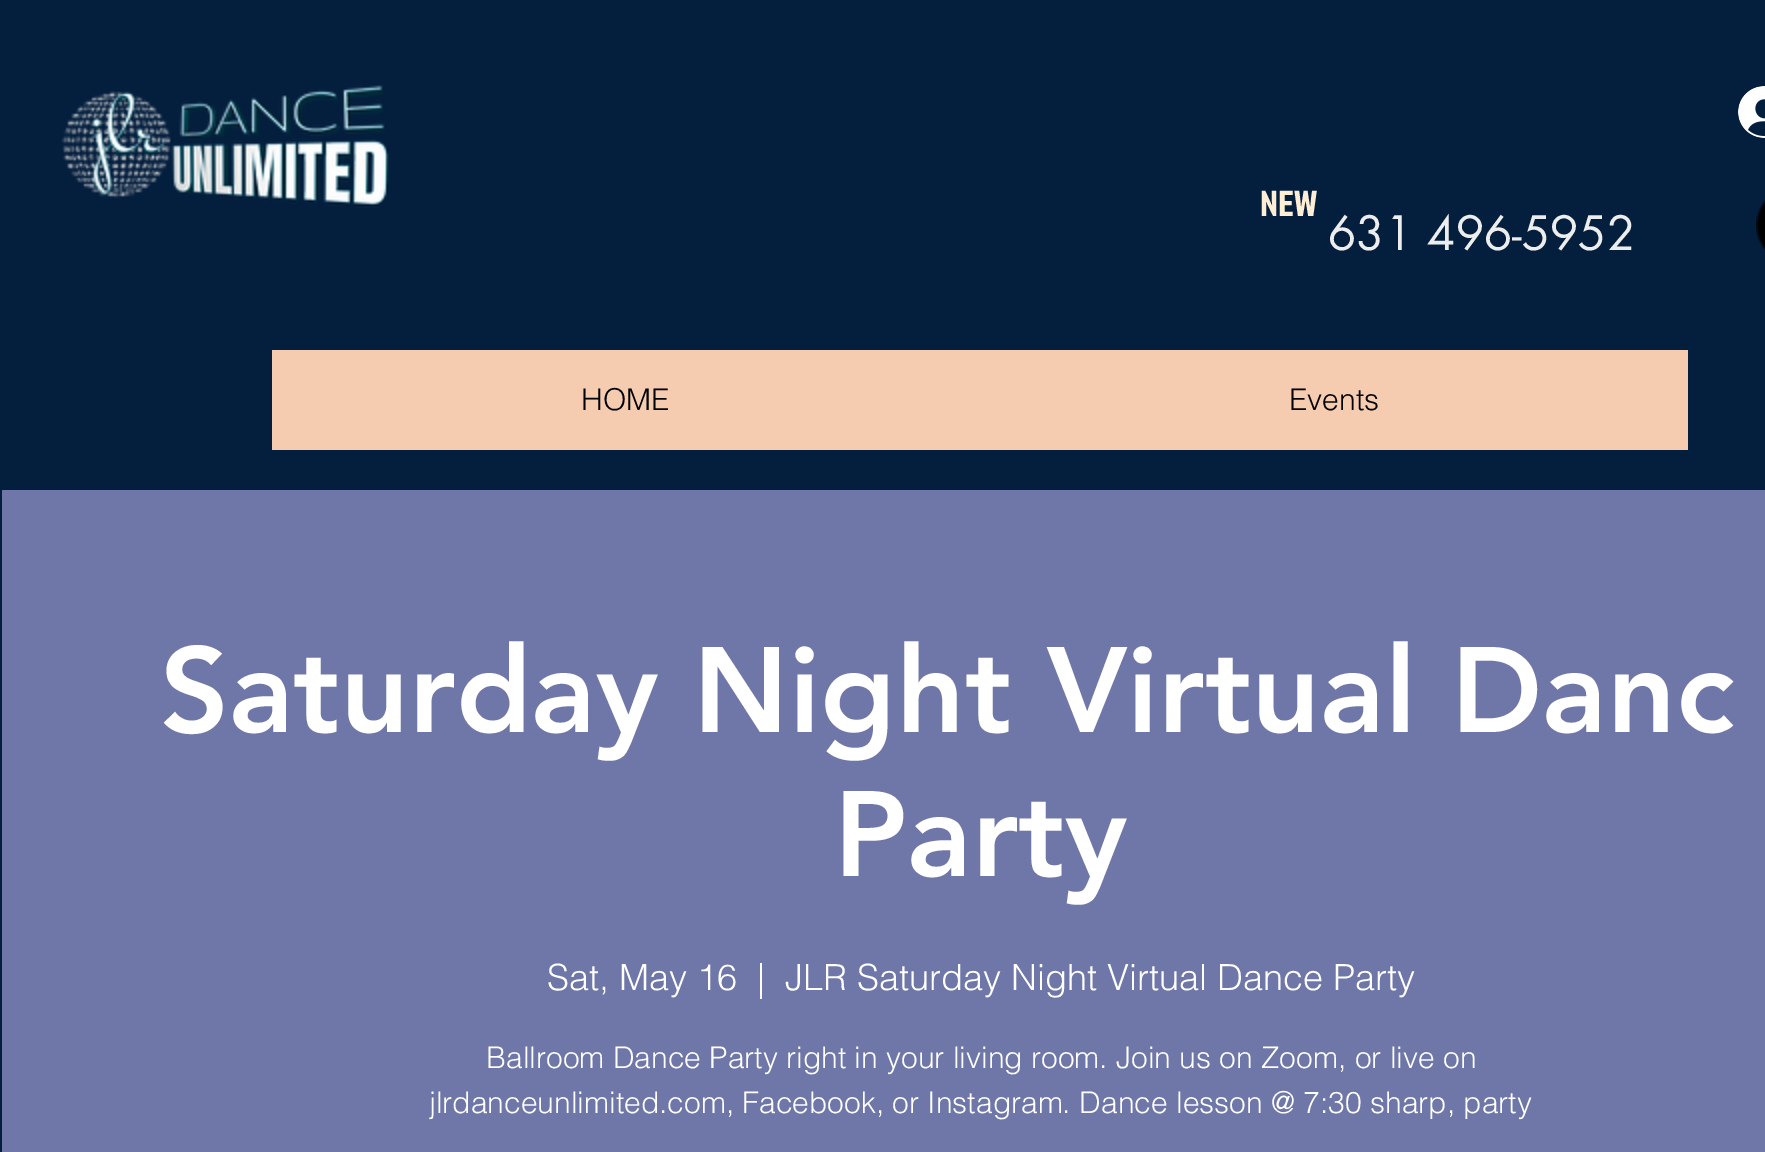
%!PS
<< /PageSize [1765 1152] >> setpagedevice
/rgb { dup -16 bitshift 255 div exch dup -8 bitshift 255 and 255 div exch 255 and 255 div setrgbcolor } def
/font { [ exch dup neg 0 0 3 -1 roll 0 0 ] selectfont } def
/text { moveto show } def
/picture { 5 dict begin { /h /w /y /x /name } { exch def } forall
  gsave x y translate w h scale
  w h 8 [w 0 0 h 0 0] name (r) file false 3 colorimage grestore end } def
0 1152 translate 1 -1 scale
4 setmiterlimit
/s1 { /JockeyOne-Regular 36 font 16#FFEED6 rgb } def
/s2 { /futura-Regular 46 font 16#EDEDED rgb } def
/s3 { /helvetica-Light 30 font 16#000000 rgb } def
/s4 { /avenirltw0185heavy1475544-Black 120 font 16#FFFFFF rgb } def
/s5 { /helvetica-Light 36 font 16#FFFFFF rgb } def
/s6 { /helvetica-Light 30 font 16#FFFFFF rgb } def
16#041F3E rgb
0 0 1765 1152 rectfill
(pic1.raw) 61 85 329 123 picture
(pic2.raw) 1738 86 27 52 picture
s1
(NEW) 1260 216 text
s2
(631 496-5952) 1328 250 text
(pic3.raw) 1756 199 9 52 picture
16#F6CCB0 rgb
272 350 1416 100 rectfill
s3
(HOME) 581 410 text
(Events) 1289 410 text
16#6E77A8 rgb
2 490 1763 662 rectfill
s4
(Saturday Night Virtual Danc) 160 732 text
(Party) 834 876 text
s5
(Sat, May 16) 547 990 text
(|) 757 990 text
(JLR Saturday Night Virtual Dance Party) 785 990 text
s6
(Ballroom Dance Party right in your living room. Join us on Zoom, or live on) 486 1068 text
(jlrdanceunlimited.com, Facebook, or Instagram. Dance lesson @ 7:30 sharp, party) 429 1113 text
showpage
